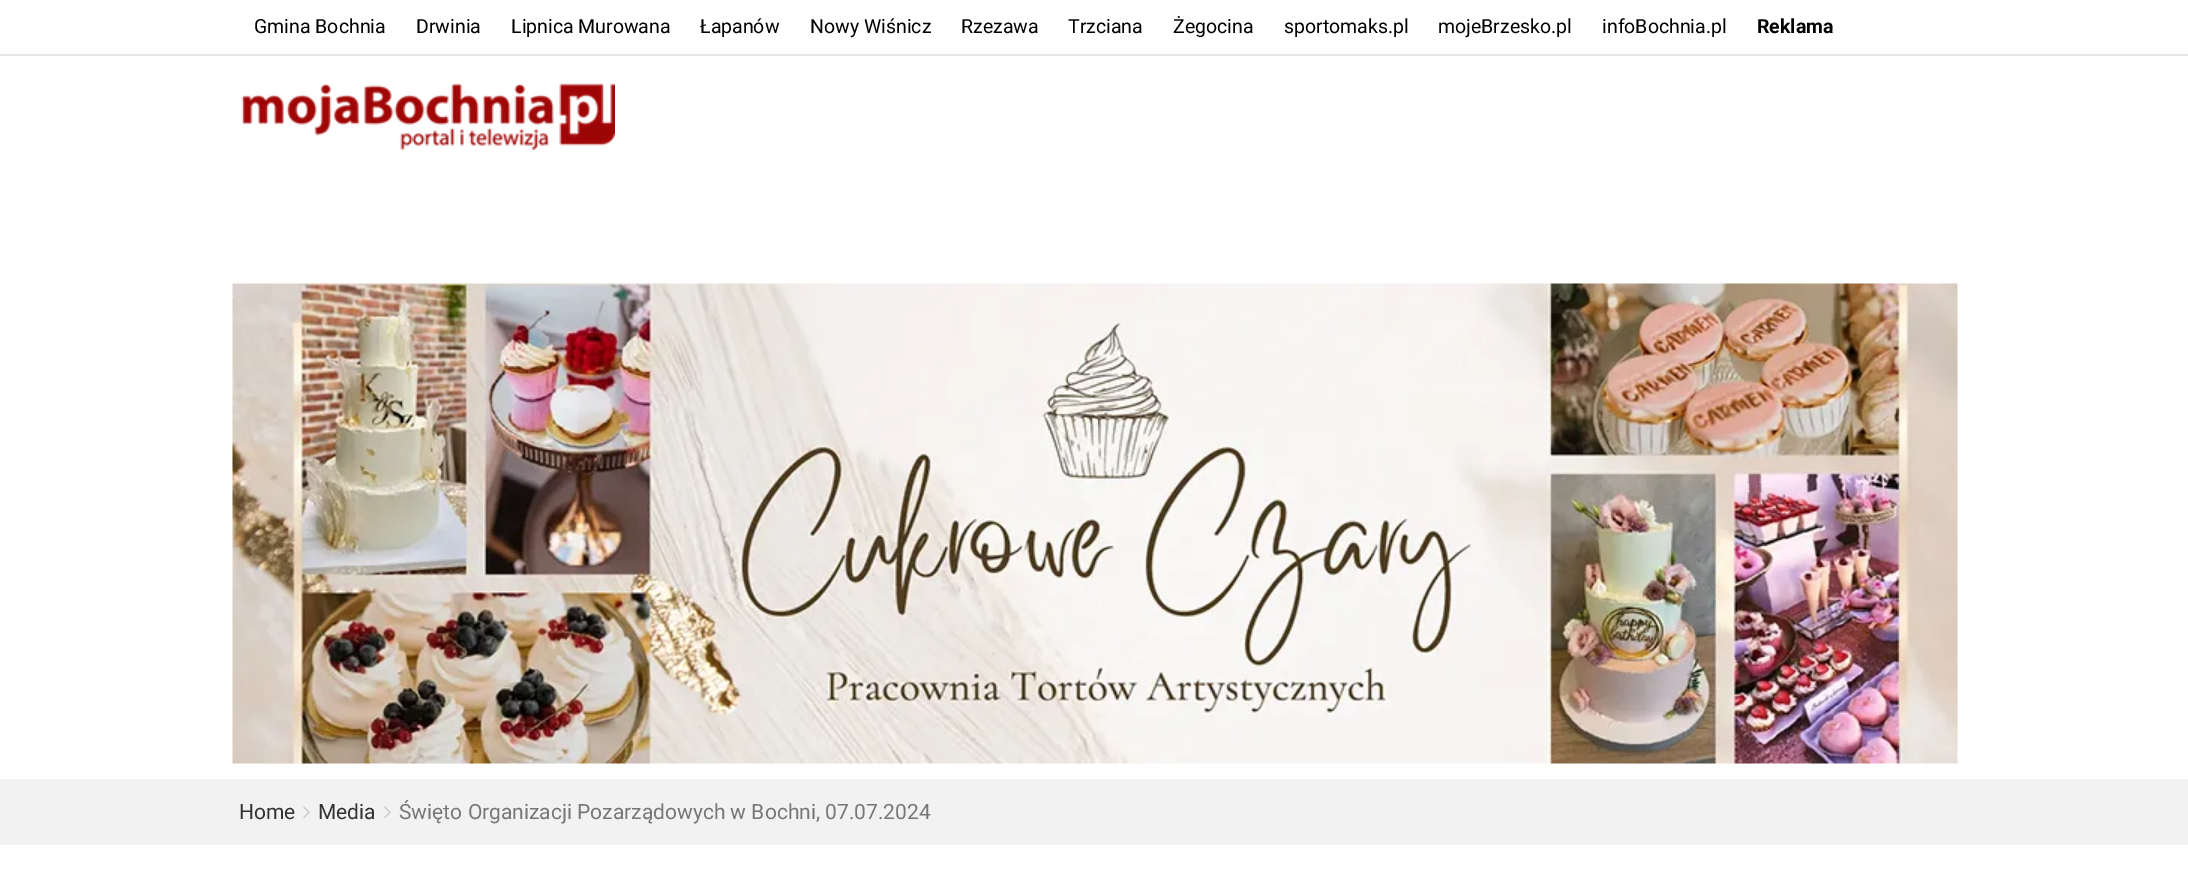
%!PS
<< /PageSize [2188 894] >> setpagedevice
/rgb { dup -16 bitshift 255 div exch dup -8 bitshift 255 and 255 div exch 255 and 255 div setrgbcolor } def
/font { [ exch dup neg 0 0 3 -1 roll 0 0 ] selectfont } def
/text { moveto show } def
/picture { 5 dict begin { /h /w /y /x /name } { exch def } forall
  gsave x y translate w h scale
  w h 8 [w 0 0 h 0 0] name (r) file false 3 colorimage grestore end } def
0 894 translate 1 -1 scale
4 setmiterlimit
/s1 { /Roboto-Regular 19.5 font 16#000000 rgb } def
/s2 { /Roboto-Bold 19.5 font 16#000000 rgb } def
/s3 { /Roboto-Regular 21 font 16#333333 rgb } def
/s4 { /Roboto-Regular 21 font 16#777777 rgb } def
16#FFFFFF rgb
0 0 2188 894 rectfill
16#E6E6E6 rgb
0 54 2188 2 rectfill
s1
(Gmina Bochnia) 254 33 text
(Drwinia) 416 33 text
(Lipnica Murowana) 511 33 text
(Łapanów) 700 33 text
(Nowy Wiśnicz) 810 33 text
(Rzezawa) 961 33 text
(Trzciana) 1068 33 text
(Żegocina) 1173 33 text
(sportomaks.pl) 1284 33 text
(mojeBrzesko.pl) 1438 33 text
(infoBochnia.pl) 1602 33 text
s2
(Reklama) 1757 33 text
(pic1.raw) 241 83 374 67 picture
(pic2.raw) 232 283 1726 481 picture
16#F2F2F2 rgb
0 779 2188 66 rectfill
s3
(Home) 239 819 text
(pic3.raw) 303 806 7 12 picture
(Media) 318 819 text
(pic3.raw) 384 806 7 12 picture
s4
(Święto Organizacji Pozarządowych w Bochni, 07.07.2024) 399 819 text
showpage
